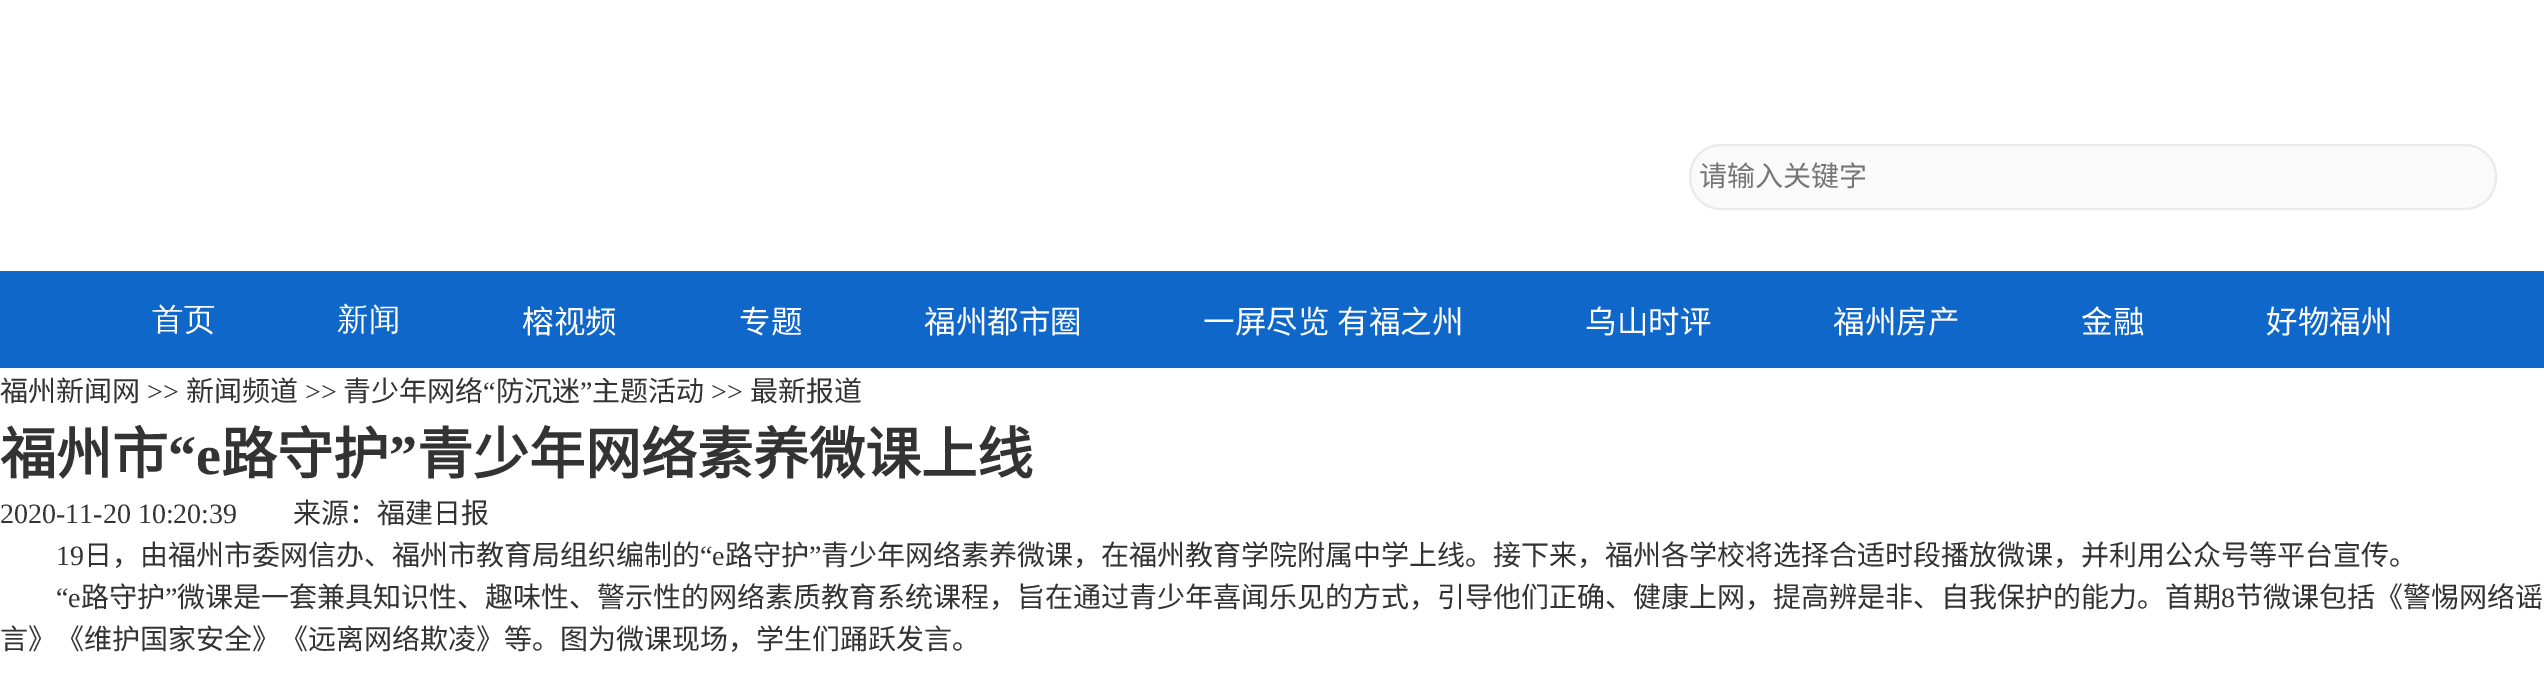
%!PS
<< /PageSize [2544 679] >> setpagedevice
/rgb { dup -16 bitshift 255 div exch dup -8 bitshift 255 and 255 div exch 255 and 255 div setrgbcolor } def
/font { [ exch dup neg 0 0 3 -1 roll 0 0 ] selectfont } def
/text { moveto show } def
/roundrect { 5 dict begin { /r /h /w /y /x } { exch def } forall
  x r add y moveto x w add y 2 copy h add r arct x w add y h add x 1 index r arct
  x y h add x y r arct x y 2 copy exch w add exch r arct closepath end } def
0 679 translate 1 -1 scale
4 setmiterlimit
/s1 { /NotoSansCJKSC-Regular 28 font 16#757575 rgb } def
/s2 { /WenQuanYiZenHei-Medium 31.5 font 16#FFFFFF rgb } def
/s3 { /NotoSansCJKSC-Regular 31.5 font 16#FFFFFF rgb } def
/s4 { /NotoSansCJKSC-Regular 28 font 16#333333 rgb } def
/s5 { /LiberationSerif-Regular 28 font 16#333333 rgb } def
/s6 { /NotoSansCJKSC-Bold 56 font 16#333333 rgb } def
/s7 { /LiberationSerif-Bold 56 font 16#333333 rgb } def
16#FFFFFF rgb
0 0 2544 679 rectfill
16#0F67C9 rgb
0 271 2544 97 rectfill
16#FAFAFA rgb
1690 145 806 64 31 roundrect gsave fill grestore
16#EAEAEA rgb
2 setlinewidth
stroke
s1
(请输入关键字) 1699 186 text
s2
(首页) 152 330 text
(新闻) 337 330 text
s3
(榕视频) 522 333 text
(专题) 739 333 text
(福州都市圈) 924 333 text
1203 333 moveto 1 0 32 (一屏尽览 有福之州) widthshow
(乌山时评) 1585 333 text
(福州房产) 1833 333 text
(金融) 2081 333 text
(好物福州) 2266 333 text
s4
(福州新闻网) 0 401 text
s5
(>>) 147 401 text
s4
(新闻频道) 186 401 text
s5
(>>) 305 401 text
s4
(青少年网络) 343 401 text
s5
(“) 483 401 text
s4
(防沉迷) 496 401 text
s5
(”) 580 401 text
s4
(主题活动) 592 401 text
s5
(>>) 711 401 text
s4
(最新报道) 750 401 text
s6
(福州市) 0 474 text
s7
(“e) 168 474 text
s6
(路守护) 221 474 text
s7
(”) 389 474 text
s6
(青少年网络素养微课上线) 417 474 text
s5
(2020-11-20 10:20:39) 0 523 text
s4
(来源：福建日报) 293 523 text
s5
(19) 56 565 text
s4
(日，由福州市委网信办、福州市教育局组织编制的) 84 565 text
s5
(“e) 700 565 text
s4
(路守护) 725 565 text
s5
(”) 809 565 text
s4
(青少年网络素养微课，在福州教育学院附属中学上线。接下来，福州各学校将选择合适时段播放微课，并利用公众号等平台宣传。) 821 565 text
s5
(“e) 56 607 text
s4
(路守护) 81 607 text
s5
(”) 165 607 text
s4
(微课是一套兼具知识性、趣味性、警示性的网络素质教育系统课程，旨在通过青少年喜闻乐见的方式，引导他们正确、健康上网，提高辨是非、自我保护的能力。首期) 177 607 text
s5
(8) 2221 607 text
s4
(节微课包括《警惕网络谣) 2235 607 text
(言》《维护国家安全》《远离网络欺凌》等。图为微课现场，学生们踊跃发言。) 0 649 text
showpage
